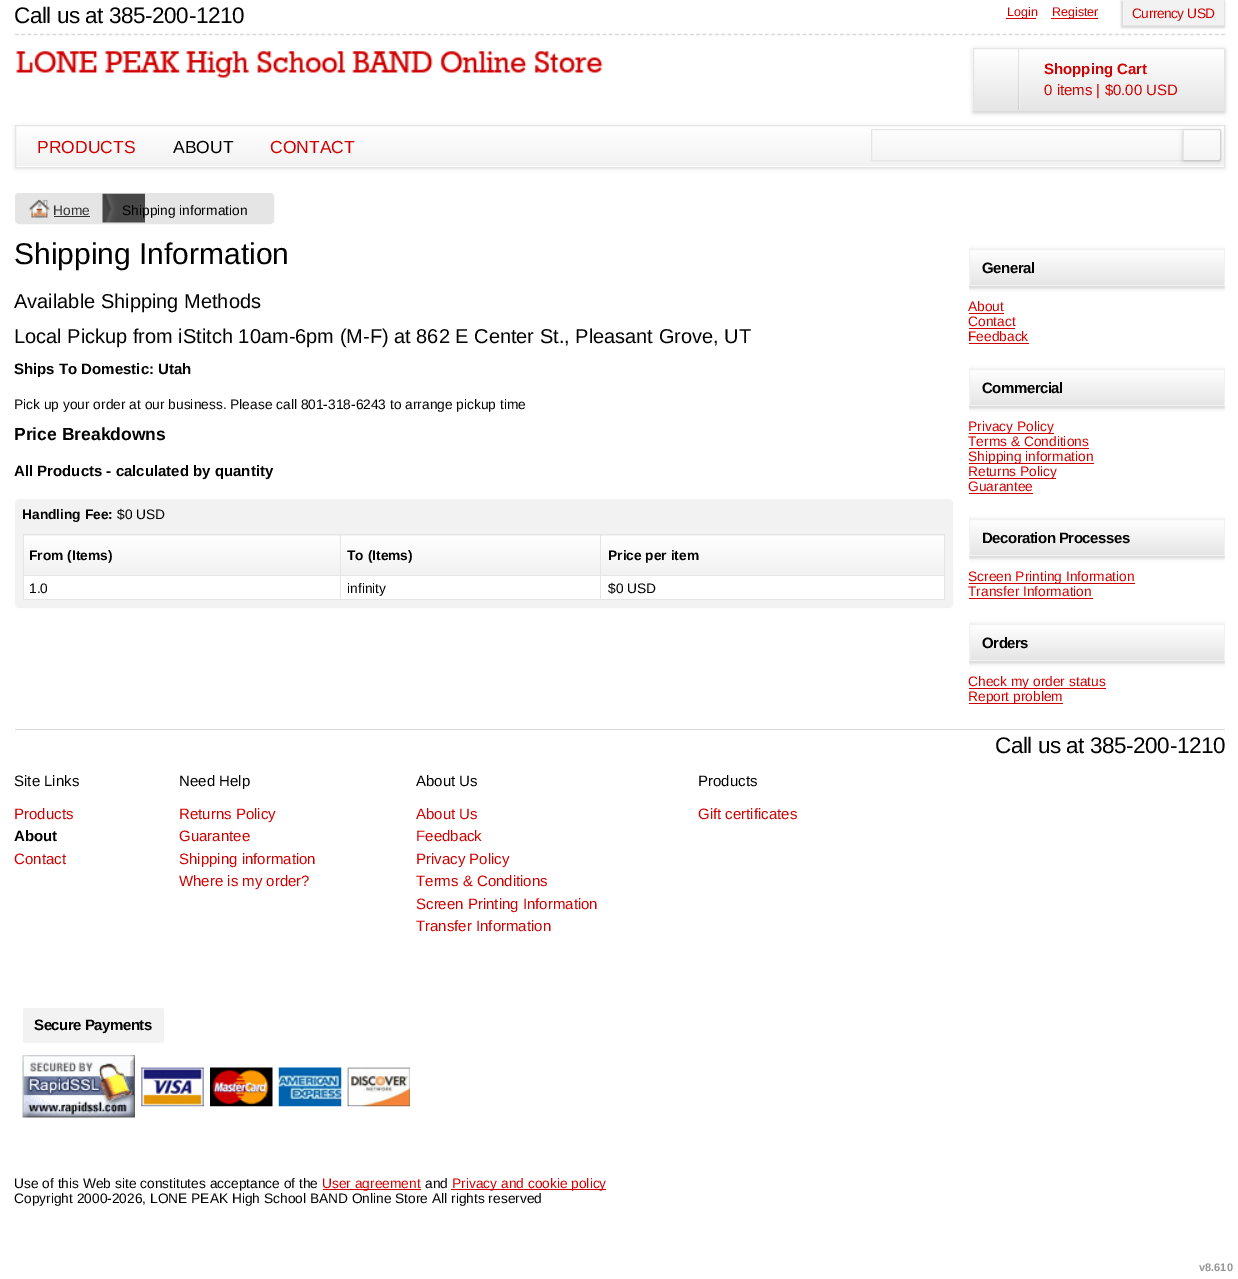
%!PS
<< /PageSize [1238 1279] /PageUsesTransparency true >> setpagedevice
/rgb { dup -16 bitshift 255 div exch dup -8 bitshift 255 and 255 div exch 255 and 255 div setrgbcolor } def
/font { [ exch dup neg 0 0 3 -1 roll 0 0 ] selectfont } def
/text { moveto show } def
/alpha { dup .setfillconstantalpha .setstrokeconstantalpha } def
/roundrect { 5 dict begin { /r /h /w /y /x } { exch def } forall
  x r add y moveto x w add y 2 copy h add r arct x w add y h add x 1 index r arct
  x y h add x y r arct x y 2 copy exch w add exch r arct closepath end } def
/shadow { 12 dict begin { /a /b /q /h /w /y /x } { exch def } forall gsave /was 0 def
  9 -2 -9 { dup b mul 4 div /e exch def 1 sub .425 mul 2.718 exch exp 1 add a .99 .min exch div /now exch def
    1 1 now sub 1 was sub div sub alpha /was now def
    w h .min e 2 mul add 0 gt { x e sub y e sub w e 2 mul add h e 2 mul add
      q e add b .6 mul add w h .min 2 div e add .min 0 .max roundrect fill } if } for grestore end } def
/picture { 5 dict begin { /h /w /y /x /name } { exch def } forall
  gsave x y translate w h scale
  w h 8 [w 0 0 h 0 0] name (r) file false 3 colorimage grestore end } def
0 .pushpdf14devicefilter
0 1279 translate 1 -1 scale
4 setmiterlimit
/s1 { /LiberationSans-Regular 12.5 font 16#CF0000 rgb } def
/s2 { /LiberationSans-Bold 15 font 16#CF0000 rgb } def
/s3 { /LiberationSans-Regular 15 font 16#CF0000 rgb } def
/s4 { /LiberationSans-Regular 17.5 font 16#CF0000 rgb } def
/s5 { /LiberationSans-Regular 17.5 font 16#000000 rgb } def
/s6 { /LiberationSans-Regular 13.75 font 16#323232 rgb } def
/s7 { /LiberationSans-Regular 13.75 font 16#000000 rgb } def
/s8 { /LiberationSans-Regular 30 font 16#000000 rgb } def
/s9 { /LiberationSans-Regular 20 font 16#000000 rgb } def
/s10 { /LiberationSans-Bold 15 font 16#000000 rgb } def
/s11 { /LiberationSans-Bold 17.5 font 16#000000 rgb } def
/s12 { /LiberationSans-Bold 13.75 font 16#000000 rgb } def
/s13 { /LiberationSans-Regular 13.75 font 16#CF0000 rgb } def
/s14 { /LiberationSans-Regular 15 font 16#000000 rgb } def
/s15 { /LiberationSans-Bold 11 font 16#959595 rgb } def
16#FFFFFF rgb
0 0 1238 1279 rectfill
16#D8D8D8 rgb
1.2 setlinewidth
[3.75 2.5] 0 setdash
15 34.5 moveto 1225 34.5 lineto stroke
/LiberationSans-Regular 22.5 font
16#000000 rgb
14 23 moveto -0.45 0 (Call us at 385-200-1210) ashow
16#CF0000 rgb
1006 18 30 1 rectfill
s1
(Login) 1007 16 text
1051 18 47 1 rectfill
(Register) 1052 16 text
16#000000 rgb
1121 1 104 27 1 1 0.15 shadow
16#F2F2F2 rgb
1123 0 101 25 rectfill
16#E5E5E5 rgb
1224 0 1 2 rectfill
1123 25 102 1 rectfill
1121 0 1 2 rectfill
/LiberationSans-Regular 13.75 font
16#CF0000 rgb
1132 18 moveto -0.5 0 (Currency USD) ashow
(pic1.raw) 16 51 587 27 picture
16#000000 rgb
973 49 252 64 1 2 0.2 shadow
(pic2.raw) 972 47 253 63 picture
16#E5E5E5 rgb
1 setlinewidth
[] 0 setdash
973.5 48.5 251 62 0.5 roundrect stroke
0.1 alpha
16#000000 rgb
1018 49 1 61 rectfill
0.4 alpha
16#FFFFFF rgb
1019 64 1 46 rectfill
1 alpha
s2
(Shopping Cart) 1044 74 text
s3
(0 items | $0.00 USD) 1044 95 text
16#000000 rgb
15 126 1210 43 0 2 0.1 shadow
gsave 16 126 moveto 1224 126 lineto 1224 166 lineto 16 166 lineto closepath clip newpath
<< /ShadingType 2 /ColorSpace /DeviceRGB /Coords [620 126 620 166] /Extend [true true] /Function << /FunctionType 2 /Domain [0 1] /C0 [1 1 1] /C1 [0.949 0.949 0.949] /N 1 >> >> shfill grestore
gsave 15 166 moveto 1225 166 lineto 1225 167 lineto 15 167 lineto closepath clip newpath
<< /ShadingType 2 /ColorSpace /DeviceRGB /Coords [620 166 620 206] /Extend [true true] /Function << /FunctionType 2 /Domain [0 1] /C0 [1 1 1] /C1 [0.949 0.949 0.949] /N 1 >> >> shfill grestore
16#E5E5E5 rgb
15.5 125.5 1209 42 rectstroke
s4
(PRODUCTS) 37 153 text
s5
(ABOUT) 173 153 text
s4
(CONTACT) 270 153 text
16#E5E5E5 rgb
871.5 129.5 349 31 0.5 roundrect stroke
gsave
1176 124 moveto 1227 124 lineto 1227 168 lineto 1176 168 lineto closepath 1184 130 moveto 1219 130 lineto 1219.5 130 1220 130.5 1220 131 curveto 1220 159 lineto 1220 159.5 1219.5 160 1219 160 curveto 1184 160 lineto 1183.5 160 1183 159.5 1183 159 curveto 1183 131 lineto 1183 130.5 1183.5 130 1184 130 curveto closepath eoclip newpath
16#000000 rgb
1183 131 37 30 1 2 0.2 shadow
grestore
1183 131 1 29 rectfill
15.5 193.5 258 30 3.5 roundrect gsave fill grestore
stroke
(pic3.raw) 28 199 22 20 picture
s6
(Home) 53 215 text
54 216 36 1 rectfill
(pic4.raw) 102 193 43 30 picture
s7
(Shipping information) 122 215 text
s8
(Shipping Information) 14 264 text
s9
(Available Shipping Methods) 14 308 text
(Local Pickup from iStitch 10am-6pm \(M-F\) at 862 E Center St., Pleasant Grove, UT) 14 343 text
s10
(Ships To Domestic: Utah) 14 374 text
s7
(Pick up your order at our business. Please call 801-318-6243 to arrange pickup time) 14 409 text
s11
(Price Breakdowns) 14 440 text
s10
(All Products - calculated by quantity) 14 476 text
16#F2F2F2 rgb
15.5 499.5 937 108 3.5 roundrect gsave fill grestore
stroke
s12
(Handling Fee:) 22 519 text
s7
($0 USD) 117 519 text
gsave 24 536 moveto 340 536 lineto 340 568 lineto 24 568 lineto closepath clip newpath
<< /ShadingType 2 /ColorSpace /DeviceRGB /Coords [181 536 181 575] /Extend [true true] /Function << /FunctionType 2 /Domain [0 1] /C0 [1 1 1] /C1 [0.949 0.949 0.949] /N 1 >> >> shfill grestore
16#E5E5E5 rgb
600 534 345 1 rectfill
600 575 345 1 rectfill
944 575 1 25 rectfill
600 599 345 1 rectfill
600 575 1 25 rectfill
340 575 261 1 rectfill
600 534 1 42 rectfill
340 534 261 1 rectfill
340 599 261 1 rectfill
340 575 1 25 rectfill
23 575 318 1 rectfill
340 534 1 42 rectfill
23 534 318 1 rectfill
23 599 318 1 rectfill
23 575 1 25 rectfill
23 534 1 42 rectfill
s12
(From \(Items\)) 29 560 text
gsave 341 536 moveto 600 536 lineto 600 568 lineto 341 568 lineto closepath clip newpath
<< /ShadingType 2 /ColorSpace /DeviceRGB /Coords [471 536 471 575] /Extend [true true] /Function << /FunctionType 2 /Domain [0 1] /C0 [1 1 1] /C1 [0.949 0.949 0.949] /N 1 >> >> shfill grestore
(To \(Items\)) 347 560 text
gsave 601 536 moveto 944 536 lineto 944 568 lineto 601 568 lineto closepath clip newpath
<< /ShadingType 2 /ColorSpace /DeviceRGB /Coords [773 536 773 575] /Extend [true true] /Function << /FunctionType 2 /Domain [0 1] /C0 [1 1 1] /C1 [0.949 0.949 0.949] /N 1 >> >> shfill grestore
16#E5E5E5 rgb
944 534 1 42 rectfill
s12
(Price per item) 608 560 text
16#FFFFFF rgb
24 576 316 23 rectfill
s7
(1.0) 29 593 text
16#FFFFFF rgb
341 576 259 23 rectfill
s7
(infinity) 347 593 text
16#FFFFFF rgb
601 576 343 23 rectfill
s7
($0 USD) 608 593 text
gsave
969 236 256 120 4 roundrect clip newpath
969 250 256 38 1 2 0.2 shadow
grestore
gsave 970 250 moveto 1224 250 lineto 1224 285 lineto 970 285 lineto closepath clip newpath
<< /ShadingType 2 /ColorSpace /DeviceRGB /Coords [1097 250 1097 285] /Extend [true true] /Function << /FunctionType 2 /Domain [0 1] /C0 [1 1 1] /C1 [0.898 0.898 0.898] /N 1 >> >> shfill grestore
16#F2F2F2 rgb
969.5 249.5 255 36 0.5 roundrect stroke
/LiberationSans-Bold 15 font
16#000000 rgb
982 273 moveto -0.5 0 (General) ashow
s13
(About) 968 311 text
969 313 35 1 rectfill
(Contact) 968 326 text
969 328 46 1 rectfill
(Feedback) 968 341 text
969 343 60 1 rectfill
gsave
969 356 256 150 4 roundrect clip newpath
16#000000 rgb
969 370 256 38 1 2 0.2 shadow
grestore
gsave 970 370 moveto 1224 370 lineto 1224 405 lineto 970 405 lineto closepath clip newpath
<< /ShadingType 2 /ColorSpace /DeviceRGB /Coords [1097 370 1097 405] /Extend [true true] /Function << /FunctionType 2 /Domain [0 1] /C0 [1 1 1] /C1 [0.898 0.898 0.898] /N 1 >> >> shfill grestore
16#F2F2F2 rgb
969.5 369.5 255 36 0.5 roundrect stroke
/LiberationSans-Bold 15 font
16#000000 rgb
982 393 moveto -0.5 0 (Commercial) ashow
16#CF0000 rgb
969 433 85 1 rectfill
s13
(Privacy Policy) 968 431 text
(Terms & Conditions) 968 446 text
969 448 120 1 rectfill
969 463 125 1 rectfill
(Shipping information) 968 461 text
969 478 87 1 rectfill
(Returns Policy) 968 476 text
(Guarantee) 968 491 text
969 493 64 1 rectfill
gsave
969 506 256 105 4 roundrect clip newpath
16#000000 rgb
969 520 256 38 1 2 0.2 shadow
grestore
gsave 970 520 moveto 1224 520 lineto 1224 555 lineto 970 555 lineto closepath clip newpath
<< /ShadingType 2 /ColorSpace /DeviceRGB /Coords [1097 520 1097 555] /Extend [true true] /Function << /FunctionType 2 /Domain [0 1] /C0 [1 1 1] /C1 [0.898 0.898 0.898] /N 1 >> >> shfill grestore
16#F2F2F2 rgb
969.5 519.5 255 36 0.5 roundrect stroke
/LiberationSans-Bold 15 font
16#000000 rgb
982 543 moveto -0.5 0 (Decoration Processes) ashow
16#CF0000 rgb
969 583 166 1 rectfill
s13
(Screen Printing Information) 968 581 text
(Transfer Information) 968 596 text
969 598 124 1 rectfill
gsave
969 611 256 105 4 roundrect clip newpath
16#000000 rgb
969 625 256 38 1 2 0.2 shadow
grestore
gsave 970 625 moveto 1224 625 lineto 1224 660 lineto 970 660 lineto closepath clip newpath
<< /ShadingType 2 /ColorSpace /DeviceRGB /Coords [1097 625 1097 660] /Extend [true true] /Function << /FunctionType 2 /Domain [0 1] /C0 [1 1 1] /C1 [0.898 0.898 0.898] /N 1 >> >> shfill grestore
16#F2F2F2 rgb
969.5 624.5 255 36 0.5 roundrect stroke
/LiberationSans-Bold 15 font
16#000000 rgb
982 648 moveto -0.5 0 (Orders) ashow
16#CF0000 rgb
969 688 137 1 rectfill
s13
(Check my order status) 968 686 text
969 703 94 1 rectfill
(Report problem) 968 701 text
16#D8D8D8 rgb
15 729 1210 1 rectfill
/LiberationSans-Regular 22.5 font
16#000000 rgb
995 753 moveto -0.45 0 (Call us at 385-200-1210) ashow
s14
(Site Links) 14 786 text
s3
(Products) 14 819 text
s10
(About) 14 841 text
s3
(Contact) 14 864 text
s14
(Need Help) 179 786 text
s3
(Returns Policy) 179 819 text
(Guarantee) 179 841 text
(Shipping information) 179 864 text
(Where is my order?) 179 886 text
s14
(About Us) 416 786 text
s3
(About Us) 416 819 text
(Feedback) 416 841 text
(Privacy Policy) 416 864 text
(Terms & Conditions) 416 886 text
(Screen Printing Information) 416 909 text
(Transfer Information) 416 931 text
s14
(Products) 698 786 text
s3
(Gift certificates) 698 819 text
16#F2F2F2 rgb
23 1008 141 35 2.5 roundrect fill
/LiberationSans-Bold 15 font
16#000000 rgb
34 1030 moveto -0.5 0 (Secure Payments) ashow
(pic5.raw) 22 1055 113 63 picture
(pic6.raw) 141 1067 63 40 picture
(pic7.raw) 210 1067 63 40 picture
(pic8.raw) 278 1067 64 40 picture
(pic9.raw) 347 1067 63 40 picture
s7
(Use of this Web site constitutes acceptance of the) 14 1188 text
16#CF0000 rgb
323 1189 98 1 rectfill
(User agreement) 322 1188 text
s7
(and) 425 1188 text
16#CF0000 rgb
451 1189 155 1 rectfill
(Privacy and cookie policy) 452 1188 text
s7
(Copyright 2000-2026, LONE PEAK High School BAND Online Store All rights reserved) 14 1203 text
s15
(v8.610) 1199 1271 text
.poppdf14devicefilter showpage
